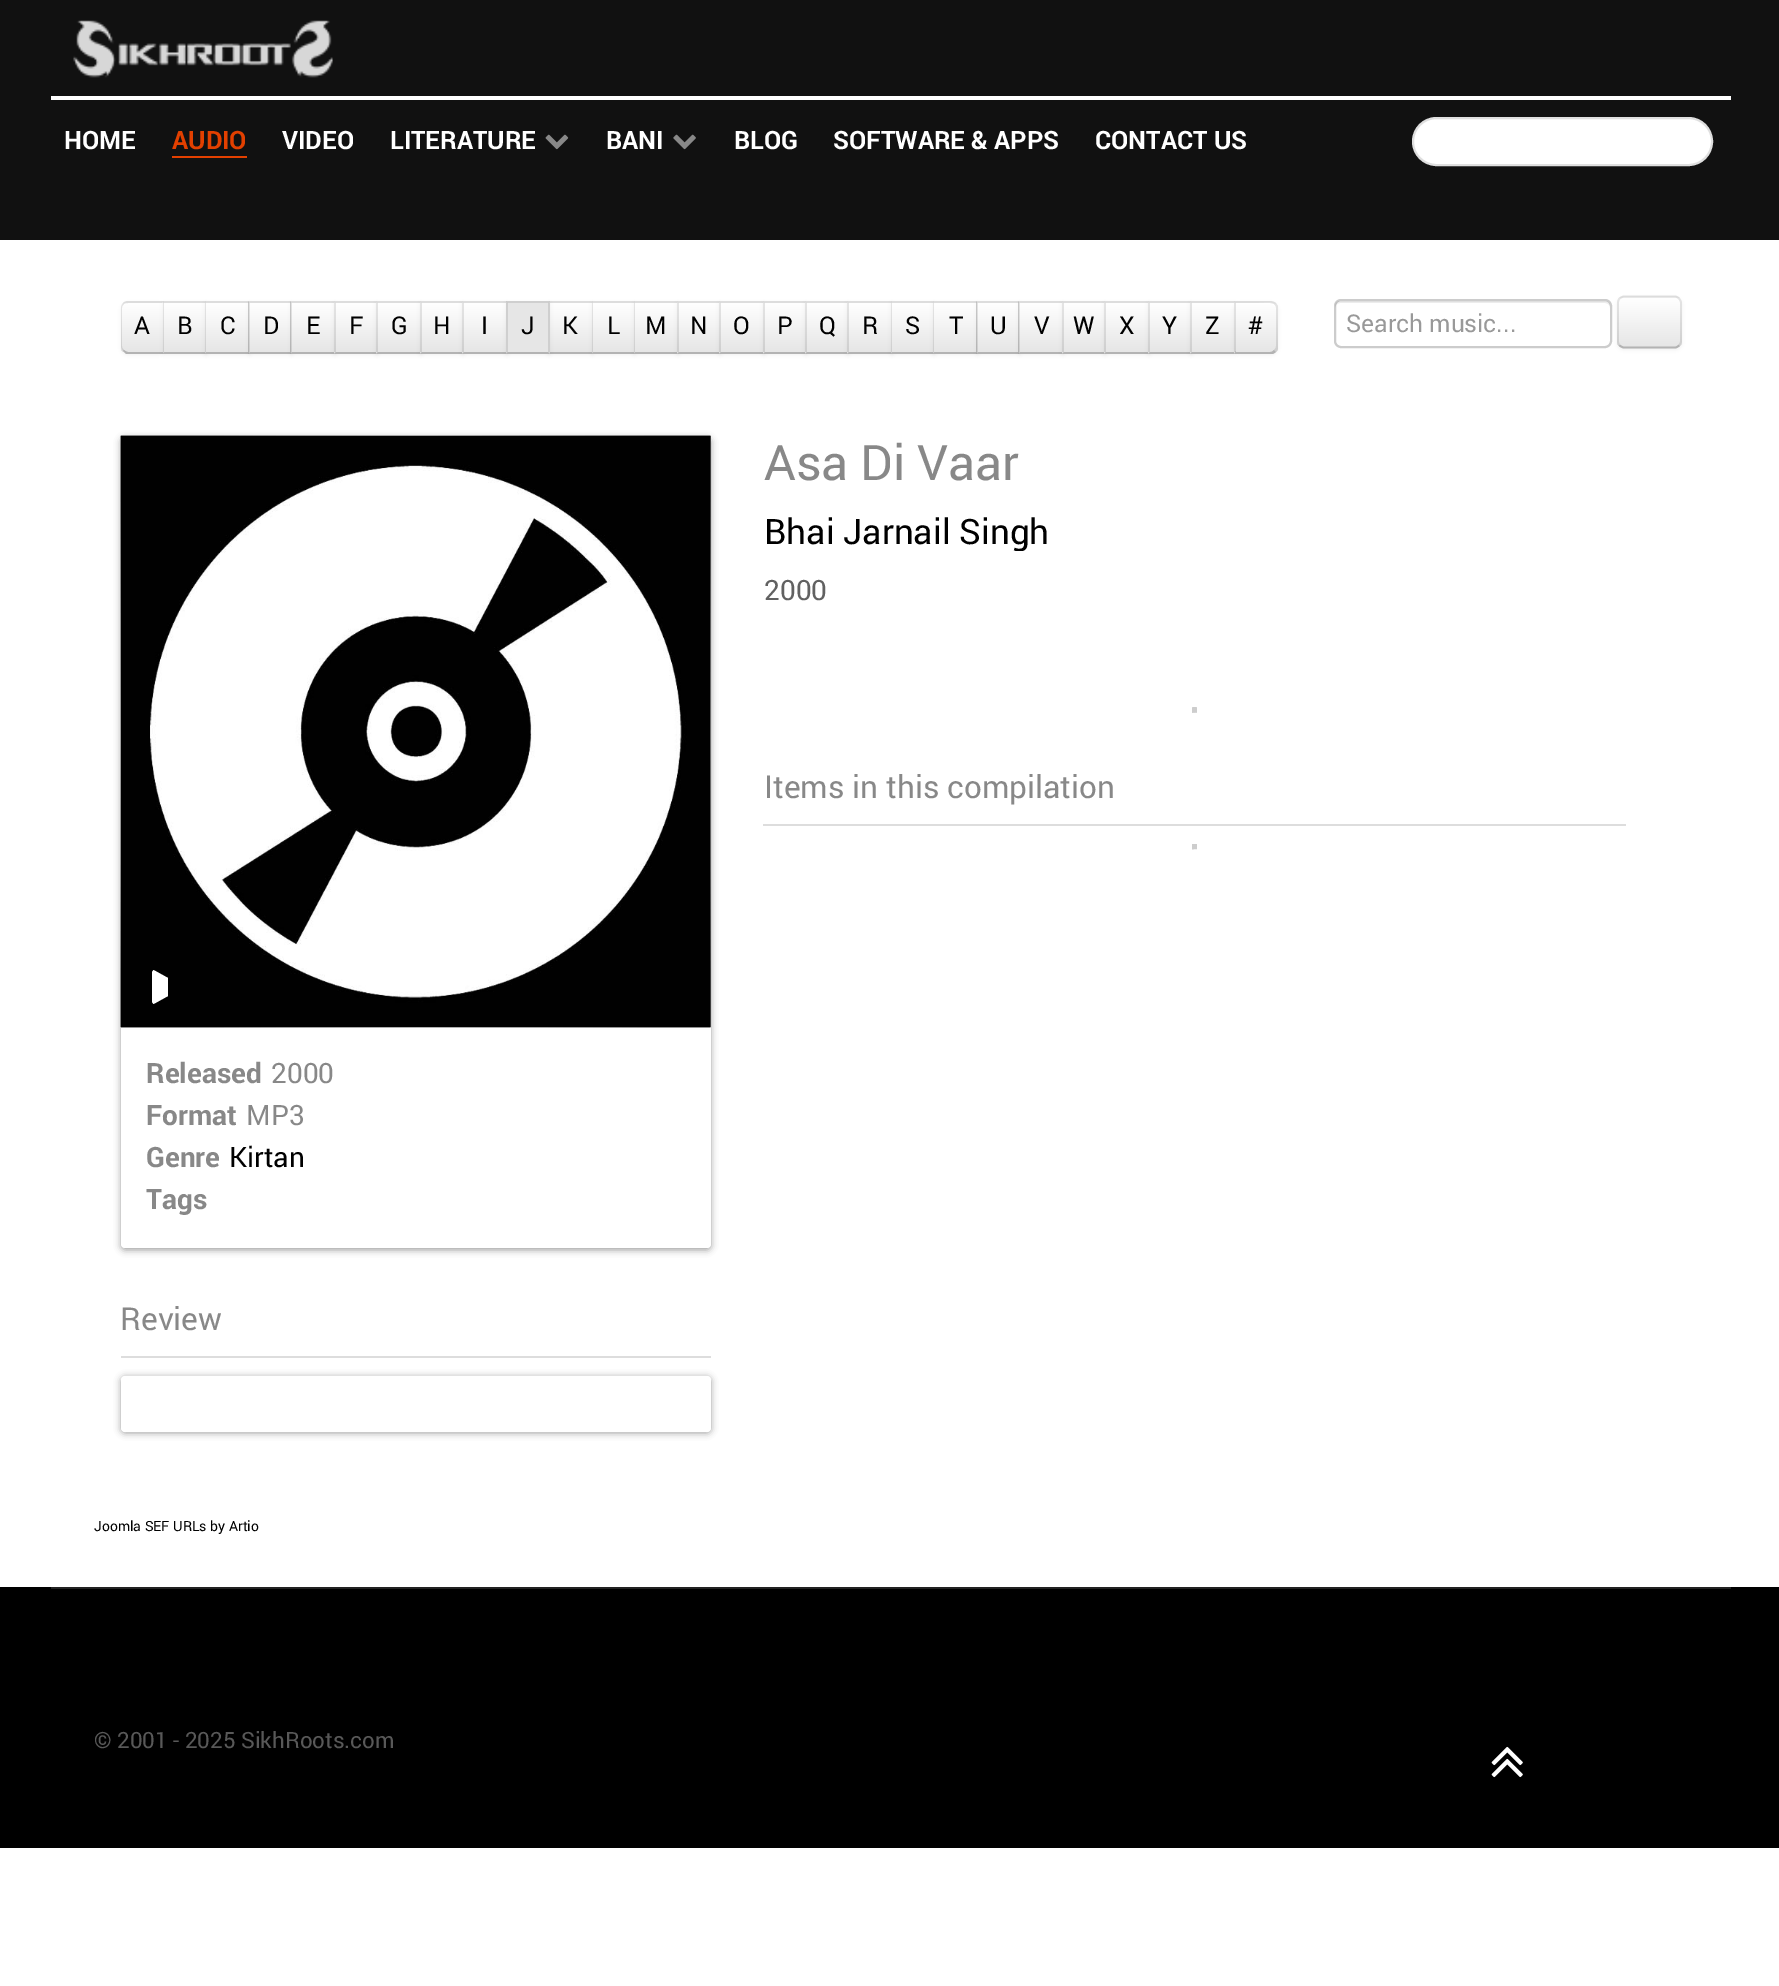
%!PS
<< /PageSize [1779 1986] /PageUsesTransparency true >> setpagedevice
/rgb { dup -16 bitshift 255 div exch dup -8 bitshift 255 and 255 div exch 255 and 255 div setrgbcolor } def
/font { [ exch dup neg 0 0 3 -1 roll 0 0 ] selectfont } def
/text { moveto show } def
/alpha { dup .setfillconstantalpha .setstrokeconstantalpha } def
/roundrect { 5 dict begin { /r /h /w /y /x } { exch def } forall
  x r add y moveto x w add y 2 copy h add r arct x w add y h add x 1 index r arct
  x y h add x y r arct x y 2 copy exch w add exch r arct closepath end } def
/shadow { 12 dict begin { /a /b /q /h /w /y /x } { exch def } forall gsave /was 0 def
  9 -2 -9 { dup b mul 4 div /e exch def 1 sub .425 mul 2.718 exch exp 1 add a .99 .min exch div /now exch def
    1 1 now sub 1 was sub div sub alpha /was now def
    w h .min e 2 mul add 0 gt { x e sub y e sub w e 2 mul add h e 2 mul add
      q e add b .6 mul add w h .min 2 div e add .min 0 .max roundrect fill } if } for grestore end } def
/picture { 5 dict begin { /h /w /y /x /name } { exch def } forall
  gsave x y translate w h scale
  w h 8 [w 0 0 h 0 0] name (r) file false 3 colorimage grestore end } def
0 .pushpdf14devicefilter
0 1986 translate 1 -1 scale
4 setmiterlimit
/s1 { /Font-Bold 25.25 font 16#FFFFFF rgb } def
/s2 { /Font-Bold 25.25 font 16#E34000 rgb } def
/s3 { /Font-Regular 24.5 font 16#000000 rgb } def
/s4 { /Font-Regular 24.5 font 16#999999 rgb } def
/s5 { /Font-Regular 49 font 16#888888 rgb } def
/s6 { /Font-Regular 35 font 16#000000 rgb } def
/s7 { /Font-Regular 28 font 16#616161 rgb } def
/s8 { /Font-Regular 31.5 font 16#888888 rgb } def
/s9 { /Font-Bold 28 font 16#888888 rgb } def
/s10 { /Font-Regular 28 font 16#888888 rgb } def
/s11 { /Font-Regular 28 font 16#000000 rgb } def
/s12 { /Font-Regular 14 font 16#000000 rgb } def
/s13 { /Font-Regular 22.4 font 16#585858 rgb } def
16#FFFFFF rgb
0 0 1779 1986 rectfill
16#111111 rgb
0 0 1779 240 rectfill
16#FFFFFF rgb
51 96 1680 4 rectfill
(pic1.raw) 73 20 260 58 picture
s1
(HOME) 64 149 text
s2
(AUDIO) 172 149 text
172 156 75 2 rectfill
s1
(VIDEO) 282 149 text
(LITERATURE) 390 149 text
(pic2.raw) 545 134 24 16 picture
(BANI) 606 149 text
(pic3.raw) 673 134 23 16 picture
(BLOG) 734 149 text
(SOFTWARE & APPS) 833 149 text
(CONTACT US) 1095 149 text
1413 118 299 47 23.5 roundrect gsave fill grestore
16#DFDFDF rgb
2 setlinewidth
stroke
16#000000 rgb
121 303 44 52 7 2 0.05 shadow
16#F5F5F5 rgb
128 301 moveto 165 301 lineto 165 354 lineto 128 354 lineto 124 354 121 351 121 347 curveto 121 308 lineto 121 304 124 301 128 301 curveto closepath fill
gsave
128 301 moveto 165 301 lineto 165 354 lineto 128 354 lineto 124 354 121 351 121 347 curveto 121 308 lineto 121 304 124 301 128 301 curveto closepath clip newpath
gsave 121 303 moveto 163 303 lineto 163 352 lineto 121 352 lineto closepath clip newpath
<< /ShadingType 2 /ColorSpace /DeviceRGB /Coords [143 303 143 352] /Extend [true true] /Function << /FunctionType 2 /Domain [0 1] /C0 [1 1 1] /C1 [0.902 0.902 0.902] /N 1 >> >> shfill grestore
grestore
0.1 alpha
16#000000 rgb
128 301 moveto 126 301 124 302 123 303 curveto 124 304 lineto 125 303 127 303 128 303 curveto 162 303 lineto 164 301 lineto closepath fill
1 alpha
16#B3B3B3 rgb
126 354 moveto 123 351 lineto 124 350 lineto 125 351 127 352 128 352 curveto 163 352 lineto 164 354 lineto closepath fill
0.1 alpha
16#000000 rgb
123 303 moveto 122 304 121 306 121 308 curveto 121 346 lineto 121 348 122 350 123 351 curveto 124 350 lineto 123 349 122 348 122 346 curveto 122 308 lineto 122 306 123 305 124 304 curveto closepath fill
1 alpha
s3
(A) 134 334 text
163 303 44 52 0 2 0.05 shadow
16#F5F5F5 rgb
163 301 1 53 rectfill
gsave 163 303 moveto 205 303 lineto 205 352 lineto 163 352 lineto closepath clip newpath
<< /ShadingType 2 /ColorSpace /DeviceRGB /Coords [185 303 185 352] /Extend [true true] /Function << /FunctionType 2 /Domain [0 1] /C0 [1 1 1] /C1 [0.902 0.902 0.902] /N 1 >> >> shfill grestore
16#DDDDDD rgb
163 301 moveto 206 301 lineto 205 303 lineto 164 303 lineto closepath fill
16#B3B3B3 rgb
206 354 moveto 163 354 lineto 164 352 lineto 205 352 lineto closepath fill
0.1 alpha
16#000000 rgb
163 354 moveto 163 301 lineto 164 303 lineto 164 352 lineto closepath fill
1 alpha
(B) 177 334 text
205 303 45 52 0 2 0.05 shadow
16#F5F5F5 rgb
205 301 44 53 rectfill
gsave 205 303 moveto 249 303 lineto 249 352 lineto 205 352 lineto closepath clip newpath
<< /ShadingType 2 /ColorSpace /DeviceRGB /Coords [228 303 228 352] /Extend [true true] /Function << /FunctionType 2 /Domain [0 1] /C0 [1 1 1] /C1 [0.902 0.902 0.902] /N 1 >> >> shfill grestore
16#DDDDDD rgb
205 301 moveto 250 301 lineto 248 303 lineto 206 303 lineto closepath fill
0.1 alpha
16#000000 rgb
250 301 moveto 250 354 lineto 248 352 lineto 248 303 lineto closepath fill
1 alpha
16#B3B3B3 rgb
250 354 moveto 205 354 lineto 206 352 lineto 248 352 lineto closepath fill
0.1 alpha
16#000000 rgb
205 354 moveto 205 301 lineto 206 303 lineto 206 352 lineto closepath fill
1 alpha
(C) 220 334 text
249 303 43 52 0 2 0.05 shadow
16#F5F5F5 rgb
249 302 42 51 rectfill
gsave 249 303 moveto 291 303 lineto 291 352 lineto 249 352 lineto closepath clip newpath
<< /ShadingType 2 /ColorSpace /DeviceRGB /Coords [270 303 270 352] /Extend [true true] /Function << /FunctionType 2 /Domain [0 1] /C0 [1 1 1] /C1 [0.902 0.902 0.902] /N 1 >> >> shfill grestore
16#DDDDDD rgb
248 301 moveto 292 301 lineto 290 303 lineto 250 303 lineto closepath fill
0.1 alpha
16#000000 rgb
292 301 moveto 292 354 lineto 290 352 lineto 290 303 lineto closepath fill
1 alpha
16#B3B3B3 rgb
292 354 moveto 248 354 lineto 250 352 lineto 290 352 lineto closepath fill
0.1 alpha
16#000000 rgb
248 354 moveto 248 301 lineto 250 303 lineto 250 352 lineto closepath fill
1 alpha
(D) 263 334 text
291 303 45 52 0 2 0.05 shadow
16#F5F5F5 rgb
291 302 1 51 rectfill
gsave 291 303 moveto 334 303 lineto 334 352 lineto 291 352 lineto closepath clip newpath
<< /ShadingType 2 /ColorSpace /DeviceRGB /Coords [313 303 313 352] /Extend [true true] /Function << /FunctionType 2 /Domain [0 1] /C0 [1 1 1] /C1 [0.902 0.902 0.902] /N 1 >> >> shfill grestore
16#DDDDDD rgb
290 301 moveto 336 301 lineto 334 303 lineto 292 303 lineto closepath fill
16#B3B3B3 rgb
336 354 moveto 290 354 lineto 292 352 lineto 334 352 lineto closepath fill
0.1 alpha
16#000000 rgb
290 354 moveto 290 301 lineto 292 303 lineto 292 352 lineto closepath fill
1 alpha
(E) 306 334 text
334 303 44 52 0 2 0.05 shadow
16#F5F5F5 rgb
334 301 2 53 rectfill
gsave 334 303 moveto 376 303 lineto 376 352 lineto 334 352 lineto closepath clip newpath
<< /ShadingType 2 /ColorSpace /DeviceRGB /Coords [356 303 356 352] /Extend [true true] /Function << /FunctionType 2 /Domain [0 1] /C0 [1 1 1] /C1 [0.902 0.902 0.902] /N 1 >> >> shfill grestore
16#DDDDDD rgb
334 301 moveto 378 301 lineto 376 303 lineto 336 303 lineto closepath fill
16#B3B3B3 rgb
378 354 moveto 334 354 lineto 336 352 lineto 376 352 lineto closepath fill
0.1 alpha
16#000000 rgb
334 354 moveto 334 301 lineto 336 303 lineto 336 352 lineto closepath fill
1 alpha
(F) 349 334 text
376 303 46 52 0 2 0.05 shadow
16#F5F5F5 rgb
376 301 2 53 rectfill
gsave 376 303 moveto 420 303 lineto 420 352 lineto 376 352 lineto closepath clip newpath
<< /ShadingType 2 /ColorSpace /DeviceRGB /Coords [399 303 399 352] /Extend [true true] /Function << /FunctionType 2 /Domain [0 1] /C0 [1 1 1] /C1 [0.902 0.902 0.902] /N 1 >> >> shfill grestore
16#DDDDDD rgb
376 301 moveto 422 301 lineto 420 303 lineto 378 303 lineto closepath fill
16#B3B3B3 rgb
422 354 moveto 376 354 lineto 378 352 lineto 420 352 lineto closepath fill
0.1 alpha
16#000000 rgb
376 354 moveto 376 301 lineto 378 303 lineto 378 352 lineto closepath fill
1 alpha
(G) 391 334 text
420 303 44 52 0 2 0.05 shadow
16#F5F5F5 rgb
420 301 2 53 rectfill
gsave 420 303 moveto 462 303 lineto 462 352 lineto 420 352 lineto closepath clip newpath
<< /ShadingType 2 /ColorSpace /DeviceRGB /Coords [442 303 442 352] /Extend [true true] /Function << /FunctionType 2 /Domain [0 1] /C0 [1 1 1] /C1 [0.902 0.902 0.902] /N 1 >> >> shfill grestore
16#DDDDDD rgb
420 301 moveto 464 301 lineto 462 303 lineto 422 303 lineto closepath fill
16#B3B3B3 rgb
464 354 moveto 420 354 lineto 422 352 lineto 462 352 lineto closepath fill
0.1 alpha
16#000000 rgb
420 354 moveto 420 301 lineto 422 303 lineto 422 352 lineto closepath fill
1 alpha
(H) 433 334 text
462 303 46 52 0 2 0.05 shadow
16#F5F5F5 rgb
462 301 2 53 rectfill
gsave 462 303 moveto 506 303 lineto 506 352 lineto 462 352 lineto closepath clip newpath
<< /ShadingType 2 /ColorSpace /DeviceRGB /Coords [485 303 485 352] /Extend [true true] /Function << /FunctionType 2 /Domain [0 1] /C0 [1 1 1] /C1 [0.902 0.902 0.902] /N 1 >> >> shfill grestore
16#DDDDDD rgb
462 301 moveto 508 301 lineto 506 303 lineto 464 303 lineto closepath fill
16#B3B3B3 rgb
508 354 moveto 462 354 lineto 464 352 lineto 506 352 lineto closepath fill
0.1 alpha
16#000000 rgb
462 354 moveto 462 301 lineto 464 303 lineto 464 352 lineto closepath fill
1 alpha
(I) 481 334 text
548 303 45 52 0 2 0.05 shadow
gsave 550 303 moveto 592 303 lineto 592 352 lineto 550 352 lineto closepath clip newpath
<< /ShadingType 2 /ColorSpace /DeviceRGB /Coords [571 303 571 352] /Extend [true true] /Function << /FunctionType 2 /Domain [0 1] /C0 [1 1 1] /C1 [0.902 0.902 0.902] /N 1 >> >> shfill grestore
16#DDDDDD rgb
548 301 moveto 593 301 lineto 592 303 lineto 550 303 lineto closepath fill
16#B3B3B3 rgb
593 354 moveto 548 354 lineto 550 352 lineto 592 352 lineto closepath fill
16#000000 rgb
506 303 44 52 0 2 0.05 shadow
16#E6E6E6 rgb
506 301 44 53 rectfill
16#CFCFCF rgb
506 301 moveto 550 301 lineto 548 303 lineto 508 303 lineto closepath fill
0.1 alpha
16#000000 rgb
550 301 moveto 550 354 lineto 548 352 lineto 548 303 lineto closepath fill
1 alpha
16#B3B3B3 rgb
550 354 moveto 506 354 lineto 508 352 lineto 548 352 lineto closepath fill
0.1 alpha
16#000000 rgb
506 354 moveto 506 301 lineto 508 303 lineto 508 352 lineto closepath fill
1 alpha
(J) 521 334 text
(K) 562 334 text
592 303 43 52 0 2 0.05 shadow
16#F5F5F5 rgb
592 301 1 53 rectfill
gsave 592 303 moveto 634 303 lineto 634 352 lineto 592 352 lineto closepath clip newpath
<< /ShadingType 2 /ColorSpace /DeviceRGB /Coords [613 303 613 352] /Extend [true true] /Function << /FunctionType 2 /Domain [0 1] /C0 [1 1 1] /C1 [0.902 0.902 0.902] /N 1 >> >> shfill grestore
16#DDDDDD rgb
592 301 moveto 635 301 lineto 634 303 lineto 593 303 lineto closepath fill
16#B3B3B3 rgb
635 354 moveto 592 354 lineto 593 352 lineto 634 352 lineto closepath fill
0.1 alpha
16#000000 rgb
592 354 moveto 592 301 lineto 593 303 lineto 593 352 lineto closepath fill
1 alpha
(L) 607 334 text
634 303 45 52 0 2 0.05 shadow
16#F5F5F5 rgb
634 301 1 53 rectfill
gsave 634 303 moveto 677 303 lineto 677 352 lineto 634 352 lineto closepath clip newpath
<< /ShadingType 2 /ColorSpace /DeviceRGB /Coords [656 303 656 352] /Extend [true true] /Function << /FunctionType 2 /Domain [0 1] /C0 [1 1 1] /C1 [0.902 0.902 0.902] /N 1 >> >> shfill grestore
16#DDDDDD rgb
634 301 moveto 679 301 lineto 677 303 lineto 635 303 lineto closepath fill
16#B3B3B3 rgb
679 354 moveto 634 354 lineto 635 352 lineto 677 352 lineto closepath fill
0.1 alpha
16#000000 rgb
634 354 moveto 634 301 lineto 635 303 lineto 635 352 lineto closepath fill
1 alpha
(M) 645 334 text
677 303 44 52 0 2 0.05 shadow
16#F5F5F5 rgb
677 301 2 53 rectfill
gsave 677 303 moveto 719 303 lineto 719 352 lineto 677 352 lineto closepath clip newpath
<< /ShadingType 2 /ColorSpace /DeviceRGB /Coords [699 303 699 352] /Extend [true true] /Function << /FunctionType 2 /Domain [0 1] /C0 [1 1 1] /C1 [0.902 0.902 0.902] /N 1 >> >> shfill grestore
16#DDDDDD rgb
677 301 moveto 721 301 lineto 719 303 lineto 679 303 lineto closepath fill
16#B3B3B3 rgb
721 354 moveto 677 354 lineto 679 352 lineto 719 352 lineto closepath fill
0.1 alpha
16#000000 rgb
677 354 moveto 677 301 lineto 679 303 lineto 679 352 lineto closepath fill
1 alpha
(N) 690 334 text
719 303 46 52 0 2 0.05 shadow
16#F5F5F5 rgb
719 301 2 53 rectfill
gsave 719 303 moveto 763 303 lineto 763 352 lineto 719 352 lineto closepath clip newpath
<< /ShadingType 2 /ColorSpace /DeviceRGB /Coords [742 303 742 352] /Extend [true true] /Function << /FunctionType 2 /Domain [0 1] /C0 [1 1 1] /C1 [0.902 0.902 0.902] /N 1 >> >> shfill grestore
16#DDDDDD rgb
719 301 moveto 765 301 lineto 763 303 lineto 721 303 lineto closepath fill
16#B3B3B3 rgb
765 354 moveto 719 354 lineto 721 352 lineto 763 352 lineto closepath fill
0.1 alpha
16#000000 rgb
719 354 moveto 719 301 lineto 721 303 lineto 721 352 lineto closepath fill
1 alpha
(O) 733 334 text
763 303 44 52 0 2 0.05 shadow
16#F5F5F5 rgb
763 301 2 53 rectfill
gsave 763 303 moveto 805 303 lineto 805 352 lineto 763 352 lineto closepath clip newpath
<< /ShadingType 2 /ColorSpace /DeviceRGB /Coords [785 303 785 352] /Extend [true true] /Function << /FunctionType 2 /Domain [0 1] /C0 [1 1 1] /C1 [0.902 0.902 0.902] /N 1 >> >> shfill grestore
16#DDDDDD rgb
763 301 moveto 807 301 lineto 805 303 lineto 765 303 lineto closepath fill
16#B3B3B3 rgb
807 354 moveto 763 354 lineto 765 352 lineto 805 352 lineto closepath fill
0.1 alpha
16#000000 rgb
763 354 moveto 763 301 lineto 765 303 lineto 765 352 lineto closepath fill
1 alpha
(P) 777 334 text
805 303 44 52 0 2 0.05 shadow
16#F5F5F5 rgb
805 301 2 53 rectfill
gsave 805 303 moveto 847 303 lineto 847 352 lineto 805 352 lineto closepath clip newpath
<< /ShadingType 2 /ColorSpace /DeviceRGB /Coords [827 303 827 352] /Extend [true true] /Function << /FunctionType 2 /Domain [0 1] /C0 [1 1 1] /C1 [0.902 0.902 0.902] /N 1 >> >> shfill grestore
16#DDDDDD rgb
805 301 moveto 849 301 lineto 847 303 lineto 807 303 lineto closepath fill
16#B3B3B3 rgb
849 354 moveto 805 354 lineto 807 352 lineto 847 352 lineto closepath fill
0.1 alpha
16#000000 rgb
805 354 moveto 805 301 lineto 807 303 lineto 807 352 lineto closepath fill
1 alpha
(Q) 819 334 text
847 303 46 52 0 2 0.05 shadow
16#F5F5F5 rgb
847 301 2 53 rectfill
gsave 847 303 moveto 891 303 lineto 891 352 lineto 847 352 lineto closepath clip newpath
<< /ShadingType 2 /ColorSpace /DeviceRGB /Coords [870 303 870 352] /Extend [true true] /Function << /FunctionType 2 /Domain [0 1] /C0 [1 1 1] /C1 [0.902 0.902 0.902] /N 1 >> >> shfill grestore
16#DDDDDD rgb
847 301 moveto 892 301 lineto 891 303 lineto 849 303 lineto closepath fill
16#B3B3B3 rgb
892 354 moveto 847 354 lineto 849 352 lineto 891 352 lineto closepath fill
0.1 alpha
16#000000 rgb
847 354 moveto 847 301 lineto 849 303 lineto 849 352 lineto closepath fill
1 alpha
(R) 862 334 text
891 303 44 52 0 2 0.05 shadow
16#F5F5F5 rgb
891 301 1 53 rectfill
gsave 891 303 moveto 933 303 lineto 933 352 lineto 891 352 lineto closepath clip newpath
<< /ShadingType 2 /ColorSpace /DeviceRGB /Coords [913 303 913 352] /Extend [true true] /Function << /FunctionType 2 /Domain [0 1] /C0 [1 1 1] /C1 [0.902 0.902 0.902] /N 1 >> >> shfill grestore
16#DDDDDD rgb
891 301 moveto 934 301 lineto 933 303 lineto 892 303 lineto closepath fill
16#B3B3B3 rgb
934 354 moveto 891 354 lineto 892 352 lineto 933 352 lineto closepath fill
0.1 alpha
16#000000 rgb
891 354 moveto 891 301 lineto 892 303 lineto 892 352 lineto closepath fill
1 alpha
(S) 905 334 text
933 303 45 52 0 2 0.05 shadow
16#F5F5F5 rgb
933 301 44 53 rectfill
gsave 933 303 moveto 977 303 lineto 977 352 lineto 933 352 lineto closepath clip newpath
<< /ShadingType 2 /ColorSpace /DeviceRGB /Coords [956 303 956 352] /Extend [true true] /Function << /FunctionType 2 /Domain [0 1] /C0 [1 1 1] /C1 [0.902 0.902 0.902] /N 1 >> >> shfill grestore
16#DDDDDD rgb
933 301 moveto 978 301 lineto 976 303 lineto 934 303 lineto closepath fill
0.1 alpha
16#000000 rgb
978 301 moveto 978 354 lineto 976 352 lineto 976 303 lineto closepath fill
1 alpha
16#B3B3B3 rgb
978 354 moveto 933 354 lineto 934 352 lineto 976 352 lineto closepath fill
0.1 alpha
16#000000 rgb
933 354 moveto 933 301 lineto 934 303 lineto 934 352 lineto closepath fill
1 alpha
(T) 949 334 text
977 303 43 52 0 2 0.05 shadow
16#F5F5F5 rgb
977 302 42 51 rectfill
gsave 977 303 moveto 1019 303 lineto 1019 352 lineto 977 352 lineto closepath clip newpath
<< /ShadingType 2 /ColorSpace /DeviceRGB /Coords [998 303 998 352] /Extend [true true] /Function << /FunctionType 2 /Domain [0 1] /C0 [1 1 1] /C1 [0.902 0.902 0.902] /N 1 >> >> shfill grestore
16#DDDDDD rgb
976 301 moveto 1020 301 lineto 1018 303 lineto 978 303 lineto closepath fill
0.1 alpha
16#000000 rgb
1020 301 moveto 1020 354 lineto 1018 352 lineto 1018 303 lineto closepath fill
1 alpha
16#B3B3B3 rgb
1020 354 moveto 976 354 lineto 978 352 lineto 1018 352 lineto closepath fill
0.1 alpha
16#000000 rgb
976 354 moveto 976 301 lineto 978 303 lineto 978 352 lineto closepath fill
1 alpha
(U) 990 334 text
1019 303 45 52 0 2 0.05 shadow
16#F5F5F5 rgb
1019 302 1 51 rectfill
gsave 1019 303 moveto 1062 303 lineto 1062 352 lineto 1019 352 lineto closepath clip newpath
<< /ShadingType 2 /ColorSpace /DeviceRGB /Coords [1041 303 1041 352] /Extend [true true] /Function << /FunctionType 2 /Domain [0 1] /C0 [1 1 1] /C1 [0.902 0.902 0.902] /N 1 >> >> shfill grestore
16#DDDDDD rgb
1018 301 moveto 1064 301 lineto 1062 303 lineto 1020 303 lineto closepath fill
16#B3B3B3 rgb
1064 354 moveto 1018 354 lineto 1020 352 lineto 1062 352 lineto closepath fill
0.1 alpha
16#000000 rgb
1018 354 moveto 1018 301 lineto 1020 303 lineto 1020 352 lineto closepath fill
1 alpha
(V) 1034 334 text
1062 303 44 52 0 2 0.05 shadow
16#F5F5F5 rgb
1062 301 2 53 rectfill
gsave 1062 303 moveto 1104 303 lineto 1104 352 lineto 1062 352 lineto closepath clip newpath
<< /ShadingType 2 /ColorSpace /DeviceRGB /Coords [1084 303 1084 352] /Extend [true true] /Function << /FunctionType 2 /Domain [0 1] /C0 [1 1 1] /C1 [0.902 0.902 0.902] /N 1 >> >> shfill grestore
16#DDDDDD rgb
1062 301 moveto 1106 301 lineto 1104 303 lineto 1064 303 lineto closepath fill
16#B3B3B3 rgb
1106 354 moveto 1062 354 lineto 1064 352 lineto 1104 352 lineto closepath fill
0.1 alpha
16#000000 rgb
1062 354 moveto 1062 301 lineto 1064 303 lineto 1064 352 lineto closepath fill
1 alpha
(W) 1073 334 text
1104 303 46 52 0 2 0.05 shadow
16#F5F5F5 rgb
1104 301 2 53 rectfill
gsave 1104 303 moveto 1148 303 lineto 1148 352 lineto 1104 352 lineto closepath clip newpath
<< /ShadingType 2 /ColorSpace /DeviceRGB /Coords [1127 303 1127 352] /Extend [true true] /Function << /FunctionType 2 /Domain [0 1] /C0 [1 1 1] /C1 [0.902 0.902 0.902] /N 1 >> >> shfill grestore
16#DDDDDD rgb
1104 301 moveto 1150 301 lineto 1148 303 lineto 1106 303 lineto closepath fill
16#B3B3B3 rgb
1150 354 moveto 1104 354 lineto 1106 352 lineto 1148 352 lineto closepath fill
0.1 alpha
16#000000 rgb
1104 354 moveto 1104 301 lineto 1106 303 lineto 1106 352 lineto closepath fill
1 alpha
(X) 1119 334 text
1148 303 44 52 0 2 0.05 shadow
16#F5F5F5 rgb
1148 301 2 53 rectfill
gsave 1148 303 moveto 1190 303 lineto 1190 352 lineto 1148 352 lineto closepath clip newpath
<< /ShadingType 2 /ColorSpace /DeviceRGB /Coords [1170 303 1170 352] /Extend [true true] /Function << /FunctionType 2 /Domain [0 1] /C0 [1 1 1] /C1 [0.902 0.902 0.902] /N 1 >> >> shfill grestore
16#DDDDDD rgb
1148 301 moveto 1192 301 lineto 1190 303 lineto 1150 303 lineto closepath fill
16#B3B3B3 rgb
1192 354 moveto 1148 354 lineto 1150 352 lineto 1190 352 lineto closepath fill
0.1 alpha
16#000000 rgb
1148 354 moveto 1148 301 lineto 1150 303 lineto 1150 352 lineto closepath fill
1 alpha
(Y) 1162 334 text
1190 303 46 52 0 2 0.05 shadow
16#F5F5F5 rgb
1190 301 2 53 rectfill
gsave 1190 303 moveto 1234 303 lineto 1234 352 lineto 1190 352 lineto closepath clip newpath
<< /ShadingType 2 /ColorSpace /DeviceRGB /Coords [1213 303 1213 352] /Extend [true true] /Function << /FunctionType 2 /Domain [0 1] /C0 [1 1 1] /C1 [0.902 0.902 0.902] /N 1 >> >> shfill grestore
16#DDDDDD rgb
1190 301 moveto 1236 301 lineto 1234 303 lineto 1192 303 lineto closepath fill
16#B3B3B3 rgb
1236 354 moveto 1190 354 lineto 1192 352 lineto 1234 352 lineto closepath fill
0.1 alpha
16#000000 rgb
1190 354 moveto 1190 301 lineto 1192 303 lineto 1192 352 lineto closepath fill
1 alpha
(Z) 1205 334 text
1234 303 44 52 7 2 0.05 shadow
16#F5F5F5 rgb
1234 301 moveto 1271 301 lineto 1275 301 1278 304 1278 308 curveto 1278 347 lineto 1278 351 1275 354 1271 354 curveto 1234 354 lineto closepath fill
gsave
1234 301 moveto 1271 301 lineto 1275 301 1278 304 1278 308 curveto 1278 347 lineto 1278 351 1275 354 1271 354 curveto 1234 354 lineto closepath clip newpath
gsave 1234 303 moveto 1278 303 lineto 1278 352 lineto 1234 352 lineto closepath clip newpath
<< /ShadingType 2 /ColorSpace /DeviceRGB /Coords [1256 303 1256 352] /Extend [true true] /Function << /FunctionType 2 /Domain [0 1] /C0 [1 1 1] /C1 [0.902 0.902 0.902] /N 1 >> >> shfill grestore
grestore
16#FFFFFF rgb
1236 304 moveto 1270 304 lineto 1273 304 1276 307 1276 310 curveto 1276 300 1267 303 1259 303 curveto 1236 303 lineto closepath fill
0.1 alpha
16#000000 rgb
1234 301 moveto 1236 303 lineto 1270 303 lineto 1272 303 1273 304 1274 304 curveto 1276 303 lineto 1274 302 1272 301 1270 301 curveto closepath fill
1278 349 moveto 1276 352 lineto 1274 350 lineto 1275 349 1276 348 1276 346 curveto 1276 308 lineto 1276 306 1275 305 1274 304 curveto 1276 303 lineto 1278 306 lineto closepath fill
1 alpha
16#B3B3B3 rgb
1234 354 moveto 1236 351 lineto 1236 352 lineto 1270 352 lineto 1272 352 1273 351 1274 350 curveto 1276 352 lineto 1273 354 lineto closepath fill
0.1 alpha
16#000000 rgb
1234 301 moveto 1234 353 lineto 1236 351 lineto 1236 303 lineto closepath fill
1 alpha
(#) 1248 334 text
16#ECECEC rgb
1340 303 moveto 1605 303 lineto 1608 303 1610 305 1610 308 curveto 1610 306 lineto 1610 303 1608 301 1605 301 curveto 1340 301 lineto 1337 301 1335 303 1335 306 curveto 1335 308 lineto 1335 305 1338 303 1340 303 curveto closepath fill
0.2 alpha
16#000000 rgb
1335 300 276 47 6 roundrect stroke
1 alpha
s4
(Search music...) 1346 332 text
16#000000 rgb
1617 298 65 52 7 2 0.05 shadow
16#F5F5F5 rgb
1617 296 65 52 7 roundrect fill
gsave
1617 296 65 52 7 roundrect clip newpath
gsave 1617 298 moveto 1682 298 lineto 1682 347 lineto 1617 347 lineto closepath clip newpath
<< /ShadingType 2 /ColorSpace /DeviceRGB /Coords [1649 298 1649 347] /Extend [true true] /Function << /FunctionType 2 /Domain [0 1] /C0 [1 1 1] /C1 [0.902 0.902 0.902] /N 1 >> >> shfill grestore
grestore
16#B3B3B3 rgb
1.8 setlinewidth
1679 345.5 moveto 1678 346.5 1676.5 347.5 1675 347.5 curveto 1624 347.5 lineto 1622.5 347.5 1621 346.5 1619.5 345.5 curveto stroke
0.1 alpha
16#000000 rgb
1619.5 345.5 moveto 1618.5 344.5 1618 343 1618 341 curveto 1618 303 lineto 1618 301 1618.5 299.5 1619.5 298.5 curveto 1621 297.5 1622.5 296.5 1624 296.5 curveto 1675 296.5 lineto 1676.5 296.5 1678 297.5 1679 298.5 curveto 1680 299.5 1681 301 1681 303 curveto 1681 341 lineto 1681 343 1680 344.5 1679 345.5 curveto stroke
1 alpha
s5
(Asa Di Vaar) 764 480 text
gsave
763 515 863 36 rectclip
s6
(Bhai Jarnail Singh) 764 544 text
grestore
s7
(2000) 764 600 text
gsave
1171 707 24 49 rectclip
16#CDCDCD rgb
5.2 setlinewidth
1193 709.5 moveto 1221.5 707 1225.5 751 1196.5 753.5 curveto stroke
grestore
gsave
1192 707 5 49 rectclip
16#CDCDCD rgb
5.2 setlinewidth
1180 747 moveto 1175.5 743 1173.5 737.5 1173.5 731.5 curveto 1173.5 705.5 1211.5 701.5 1216.5 727 curveto 1218 734.5 1216 742 1210.5 747 curveto stroke
grestore
gsave
1195 707 25 49 rectclip
16#CDCDCD rgb
5.2 setlinewidth
1193 753.5 moveto 1164 751 1168 707 1196.5 709.5 curveto stroke
grestore
gsave
1171 707 24 49 rectclip
16#CDCDCD rgb
5.2 setlinewidth
1193 709.5 moveto 1221.5 707 1225.5 751 1196.5 753.5 curveto stroke
grestore
16#DDDDDD rgb
763 824 863 2 rectfill
s8
(Items in this compilation) 764 798 text
gsave
1171 844 24 49 rectclip
16#CDCDCD rgb
5.2 setlinewidth
1193 846 moveto 1221.5 843.5 1225.5 887.5 1196.5 890 curveto stroke
grestore
gsave
1192 844 5 49 rectclip
16#CDCDCD rgb
5.2 setlinewidth
1180 883.5 moveto 1174.5 878.5 1172.5 871 1174 863.5 curveto 1179 838 1217 842 1217 868 curveto 1217 874 1215 879.5 1210.5 883.5 curveto 1180 883.5 moveto 1174.5 878.5 1172.5 871 1174 863.5 curveto 1179 838 1217 842 1217 868 curveto 1217 874 1215 879.5 1210.5 883.5 curveto stroke
grestore
16#000000 rgb
121 438 590 812 4 3.5 0.37 shadow
16#FFFFFF rgb
121 436 590 812 4 roundrect fill
(pic4.raw) 120 435 591 593 picture
(pic5.raw) 120 435 591 593 picture
152 972 moveto 153.5 970 lineto 168 978 lineto 168 996 lineto 153.5 1004 lineto 152 1002 lineto closepath fill
s9
(Released) 146 1083 text
s10
(2000) 271 1083 text
s9
(Format) 146 1125 text
s10
(MP3) 246 1125 text
s9
(Genre) 146 1167 text
s11
(Kirtan) 229 1167 text
s9
(Tags) 146 1209 text
16#DDDDDD rgb
121 1356 590 2 rectfill
s8
(Review) 120 1330 text
16#000000 rgb
121 1377 590 56 4 3.5 0.37 shadow
16#FFFFFF rgb
121 1376 590 56 4 roundrect fill
s12
(Joomla SEF URLs by Artio) 94 1531 text
0 1587 1779 261 rectfill
16#222222 rgb
51 1587 1680 2 rectfill
s13
(© 2001 - 2025 SikhRoots.com) 94 1748 text
(pic6.raw) 1491 1746 32 32 picture
.poppdf14devicefilter showpage
